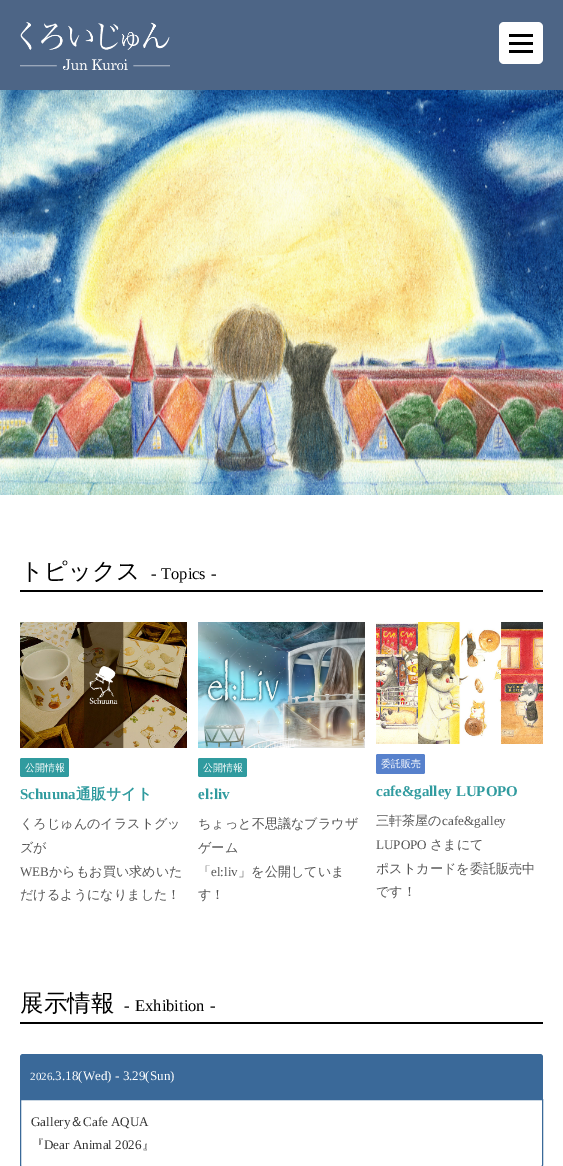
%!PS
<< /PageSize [563 1166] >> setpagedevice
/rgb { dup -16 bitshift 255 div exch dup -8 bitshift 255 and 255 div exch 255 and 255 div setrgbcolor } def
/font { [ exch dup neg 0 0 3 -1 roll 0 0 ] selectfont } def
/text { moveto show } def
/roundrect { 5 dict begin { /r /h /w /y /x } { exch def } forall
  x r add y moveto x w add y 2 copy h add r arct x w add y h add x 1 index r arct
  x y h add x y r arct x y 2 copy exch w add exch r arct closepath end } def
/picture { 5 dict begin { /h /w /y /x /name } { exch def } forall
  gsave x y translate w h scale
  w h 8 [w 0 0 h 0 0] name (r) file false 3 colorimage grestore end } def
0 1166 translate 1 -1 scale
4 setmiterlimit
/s1 { /WenQuanYiZenHei-Medium 23.5 font 16#000000 rgb } def
/s2 { /LiberationSerif-Regular 16.5 font 16#000000 rgb } def
/s3 { /WenQuanYiZenHei-Medium 10 font 16#FFFFFF rgb } def
/s4 { /LiberationSerif-Bold 15 font 16#309B9F rgb } def
/s5 { /WenQuanYiZenHei-Bold 15 font 16#309B9F rgb } def
/s6 { /WenQuanYiZenHei-Medium 13.1 font 16#555555 rgb } def
/s7 { /LiberationSerif-Regular 13.1 font 16#555555 rgb } def
/s8 { /LiberationSerif-Regular 11 font 16#FFFFFF rgb } def
/s9 { /LiberationSerif-Regular 13.1 font 16#FFFFFF rgb } def
/s10 { /LiberationSerif-Regular 13.1 font 16#333333 rgb } def
/s11 { /WenQuanYiZenHei-Medium 13.1 font 16#333333 rgb } def
16#FFFFFF rgb
0 0 563 1166 rectfill
16#4D6586 rgb
0 0 563 90 rectfill
16#FFFFFF rgb
499 22 44 42 5 roundrect fill
16#000000 rgb
509 34 24 3 rectfill
509 42 24 3 rectfill
509 50 24 3 rectfill
(pic1.raw) 20 22 150 48 picture
(pic2.raw) 0 90 563 405 picture
20 590 523 2 rectfill
s1
(トピックス) 20 579 text
s2
(-) 151 579 text
(Topics) 161 579 text
(-) 211 579 text
(pic3.raw) 20 622 167 126 picture
16#309B9F rgb
20 758 49 19 2 roundrect fill
s3
(公開情報) 25 771 text
s4
(Schuuna) 20 799 text
s5
(通販サイト) 76 799 text
s6
(くろじゅんのイラストグッ) 20 828 text
(ズが) 20 852 text
s7
(WEB) 20 876 text
s6
(からもお買い求めいた) 49 876 text
(だけるようになりました！) 20 899 text
(pic4.raw) 198 622 167 126 picture
16#309B9F rgb
198 758 49 19 2 roundrect fill
s3
(公開情報) 203 771 text
s4
(el:liv) 198 799 text
s6
(ちょっと不思議なブラウザ) 198 828 text
(ゲーム) 198 852 text
(「) 198 876 text
s7
(el:liv) 211 876 text
s6
(」を公開していま) 238 876 text
(す！) 198 899 text
(pic5.raw) 376 622 167 122 picture
16#5781CC rgb
376 754 49 20 2 roundrect fill
s3
(委託販売) 381 767 text
s4
(cafe&galley LUPOPO) 376 796 text
s6
(三軒茶屋の) 376 825 text
s7
(cafe&galley) 442 825 text
(LUPOPO) 376 849 text
s6
(さまにて) 430 849 text
(ポストカードを委託販売中) 376 873 text
(です！) 376 896 text
16#000000 rgb
20 1022 523 2 rectfill
s1
(展示情報) 20 1011 text
s2
(-) 124 1011 text
(Exhibition) 135 1011 text
(-) 210 1011 text
16#3A6999 rgb
23 1054 moveto 540 1054 lineto 541.5 1054 543 1055.5 543 1057 curveto 543 1099 lineto 20 1099 lineto 20 1057 lineto 20 1055.5 21.5 1054 23 1054 curveto closepath fill
s8
(2026) 30 1080 text
s9
(.3.18\(Wed\) - 3.29\(Sun\)) 52 1080 text
16#3A6999 rgb
20.5 1099.5 moveto 542.5 1099.5 lineto 542.5 1165 lineto 542.5 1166.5 541.5 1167.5 540 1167.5 curveto 23 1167.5 lineto 21.5 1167.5 20.5 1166.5 20.5 1165 curveto closepath stroke
s10
(Gallery) 31 1126 text
s11
(＆) 70 1126 text
s10
(Cafe AQUA) 83 1126 text
s11
(『) 31 1149 text
s10
(Dear Animal 2026) 44 1149 text
s11
(』) 142 1149 text
showpage
